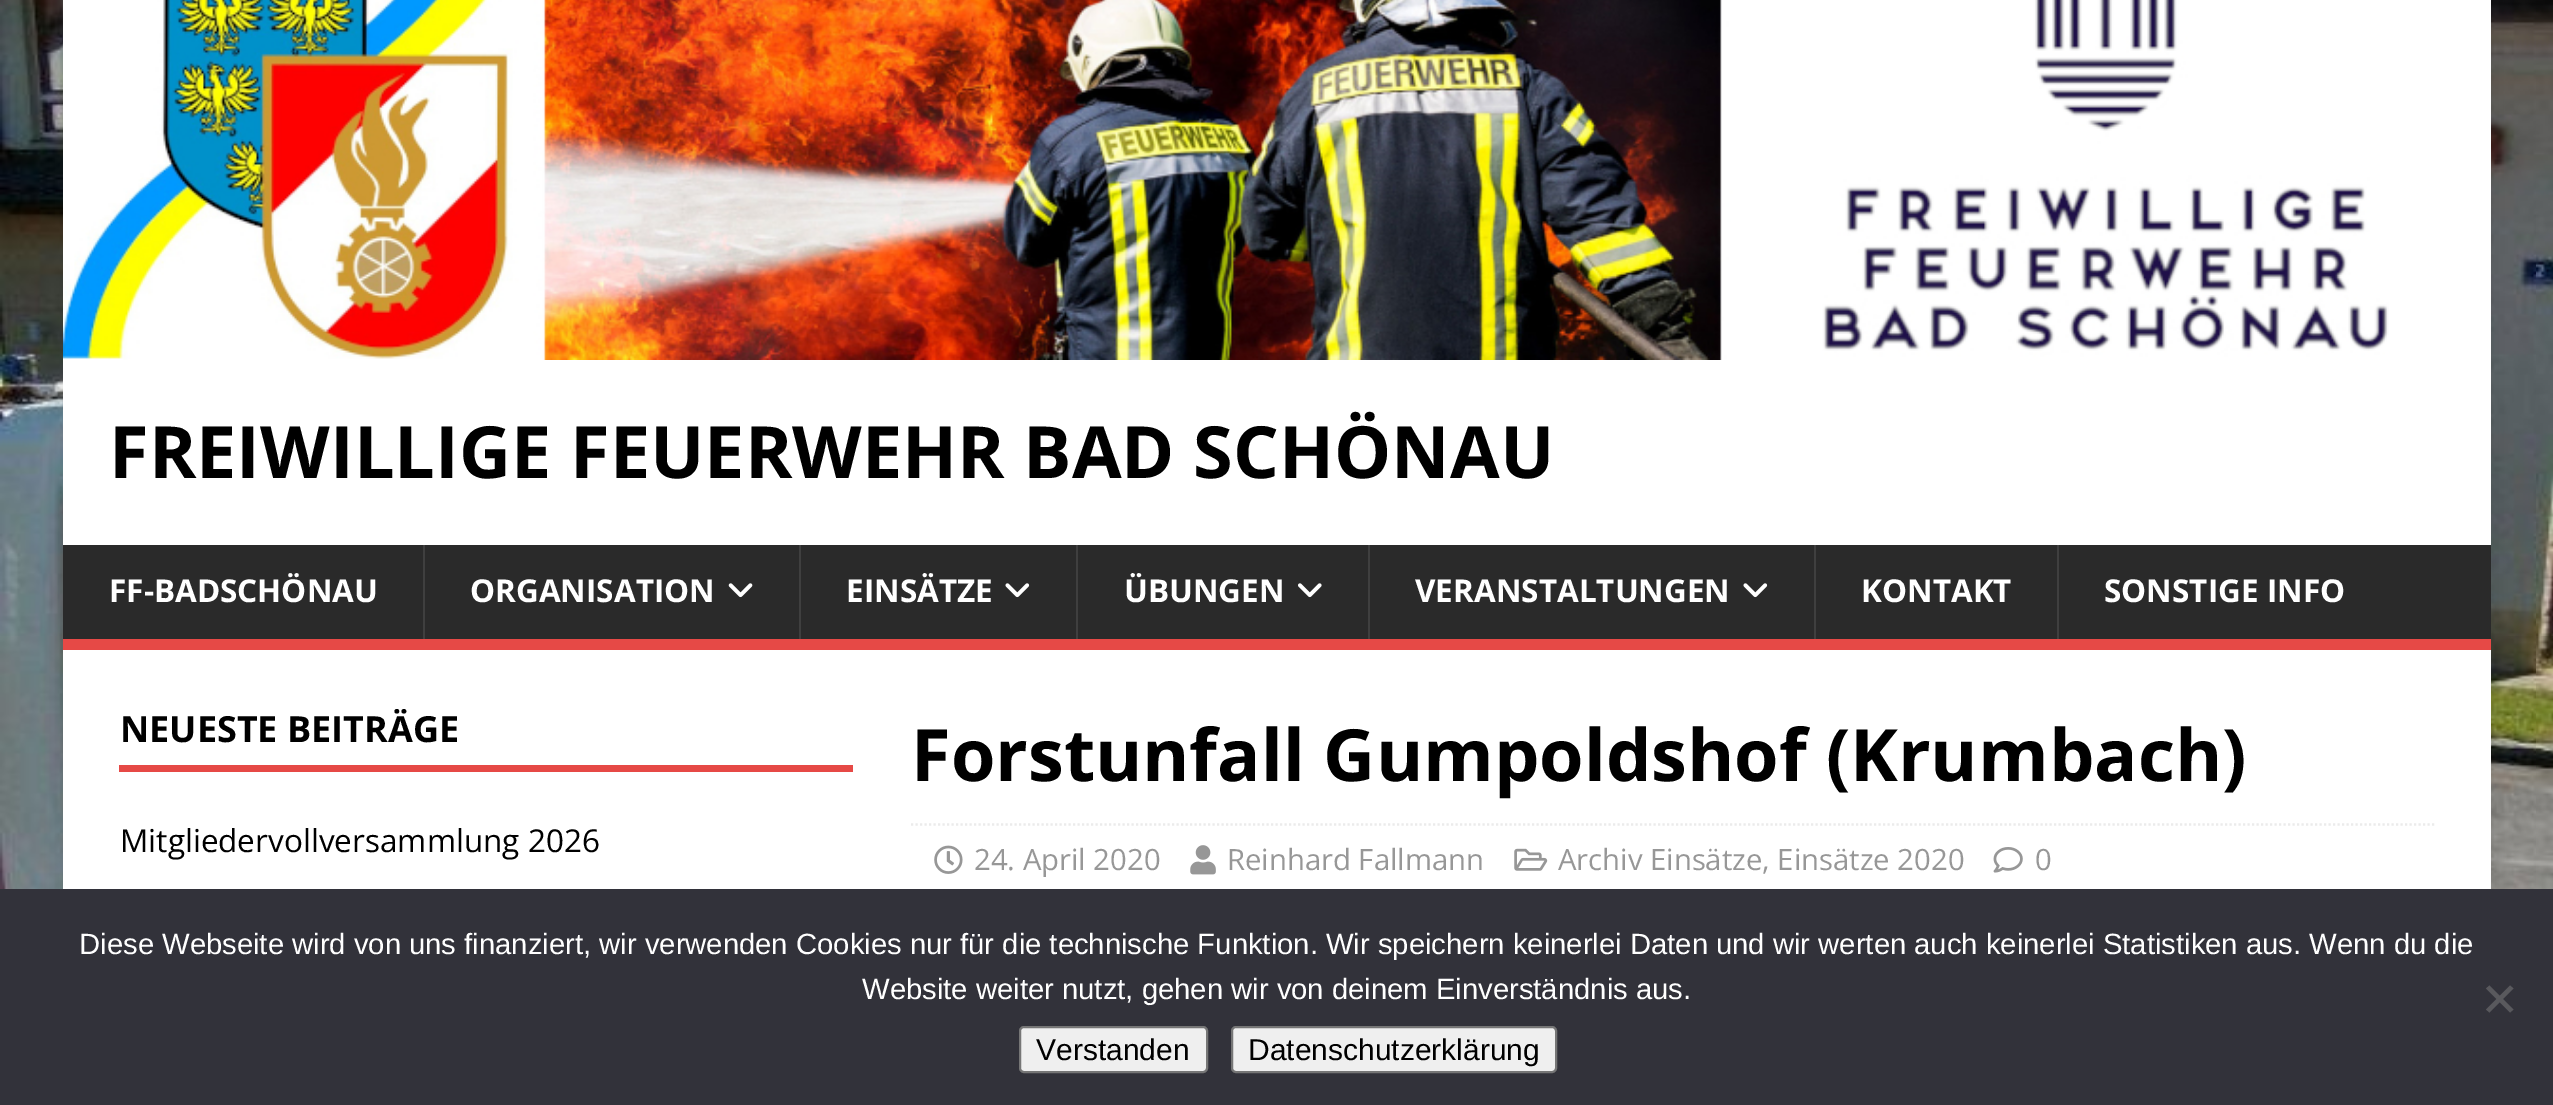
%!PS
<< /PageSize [2553 1105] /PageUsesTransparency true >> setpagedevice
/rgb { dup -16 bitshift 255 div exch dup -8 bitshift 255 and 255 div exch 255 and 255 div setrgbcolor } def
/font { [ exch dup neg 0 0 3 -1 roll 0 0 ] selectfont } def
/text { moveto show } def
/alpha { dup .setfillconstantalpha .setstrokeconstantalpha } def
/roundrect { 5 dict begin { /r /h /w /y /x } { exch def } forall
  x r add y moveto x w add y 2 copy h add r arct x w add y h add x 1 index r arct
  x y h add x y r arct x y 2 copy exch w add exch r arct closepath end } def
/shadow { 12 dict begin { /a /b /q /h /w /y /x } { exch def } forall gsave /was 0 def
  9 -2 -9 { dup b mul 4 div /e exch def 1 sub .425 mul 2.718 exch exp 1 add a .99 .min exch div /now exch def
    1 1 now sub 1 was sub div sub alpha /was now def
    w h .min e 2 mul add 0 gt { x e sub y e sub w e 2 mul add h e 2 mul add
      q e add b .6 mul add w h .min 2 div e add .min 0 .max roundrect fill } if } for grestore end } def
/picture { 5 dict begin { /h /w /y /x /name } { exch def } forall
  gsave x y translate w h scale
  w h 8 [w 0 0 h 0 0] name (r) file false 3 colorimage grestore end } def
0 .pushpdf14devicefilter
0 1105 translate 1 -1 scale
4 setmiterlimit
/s1 { /OpenSans-Bold 72 font 16#000000 rgb } def
/s2 { /OpenSans-Bold 31.5 font 16#FFFFFF rgb } def
/s3 { /OpenSans-Bold 36 font 16#000000 rgb } def
/s4 { /OpenSans-Regular 31.5 font 16#000000 rgb } def
/s5 { /OpenSans-Regular 29.25 font 16#979797 rgb } def
/s6 { /LiberationSans-Regular 29.25 font 16#FFFFFF rgb } def
/s7 { /LiberationSans-Regular 30 font 16#000000 rgb } def
16#FFFFFF rgb
0 0 2553 1105 rectfill
(pic1.raw) 0 0 2553 889 picture
16#323232 rgb
63 -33 2428 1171 0 11 0.17 shadow
16#FFFFFF rgb
63 0 2428 545 rectfill
(pic2.raw) 63 0 2326 360 picture
s1
(FREIWILLIGE FEUERWEHR BAD SCHÖNAU) 109 478 text
16#2A2A2A rgb
63 545 2428 94 rectfill
16#E64946 rgb
63 639 2428 11 rectfill
s2
(FF-BADSCHÖNAU) 109 602 text
16#3F3F3F rgb
423 545 2 94 rectfill
s2
(ORGANISATION) 470 602 text
(pic3.raw) 728 583 25 15 picture
16#3F3F3F rgb
799 545 2 94 rectfill
s2
(EINSÄTZE) 846 602 text
(pic4.raw) 1005 583 25 15 picture
16#3F3F3F rgb
1076 545 2 94 rectfill
s2
(ÜBUNGEN) 1124 602 text
(pic5.raw) 1298 583 24 15 picture
16#3F3F3F rgb
1368 545 2 94 rectfill
s2
(VERANSTALTUNGEN) 1415 602 text
(pic4.raw) 1743 583 25 15 picture
16#3F3F3F rgb
1814 545 2 94 rectfill
s2
(KONTAKT) 1861 602 text
16#3F3F3F rgb
2057 545 2 94 rectfill
s2
(SONSTIGE INFO) 2104 602 text
63 650 2428 239 rectfill
16#E64946 rgb
119 765 734 7 rectfill
s3
(NEUESTE BEITRÄGE) 120 742 text
s4
(Mitgliedervollversammlung 2026) 120 852 text
s1
(Forstunfall Gumpoldshof \(Krumbach\)) 911 781 text
16#EBEBEB rgb
2.2 setlinewidth
[2.25 2.25] 0 setdash
911 824.5 moveto 2434.5 824.5 lineto stroke
(pic6.raw) 934 845 29 29 picture
s5
(24. April 2020) 974 870 text
(pic7.raw) 1190 845 26 30 picture
(Reinhard Fallmann) 1227 870 text
(pic8.raw) 1514 848 34 23 picture
(Archiv Einsätze, Einsätze 2020) 1558 870 text
(pic9.raw) 1993 847 30 26 picture
(0) 2035 870 text
16#32323A rgb
0 889 2553 216 rectfill
s6
(Diese Webseite wird von uns finanziert, wir verwenden Cookies nur für die technische Funktion. Wir speichern keinerlei Daten und wir werten auch keinerlei Statistiken aus. Wenn du die) 79 954 text
(Website weiter nutzt, gehen wir von deinem Einverständnis aus.) 862 999 text
16#59595D rgb
2510 985.5 moveto 2513.5 988.5 lineto 2489.5 1012.5 lineto 2486 1009.5 lineto closepath fill
2486 988.5 moveto 2489.5 985.5 lineto 2513.5 1009.5 lineto 2510 1012.5 lineto closepath fill
16#EFEFEF rgb
1020 1027 187 45 4 roundrect gsave fill grestore
16#767676 rgb
2 setlinewidth
[] 0 setdash
stroke
s7
(Verstanden) 1036 1060 text
16#EFEFEF rgb
1232 1027 324 45 4 roundrect gsave fill grestore
16#767676 rgb
stroke
s7
(Datenschutzerklärung) 1248 1060 text
.poppdf14devicefilter showpage
